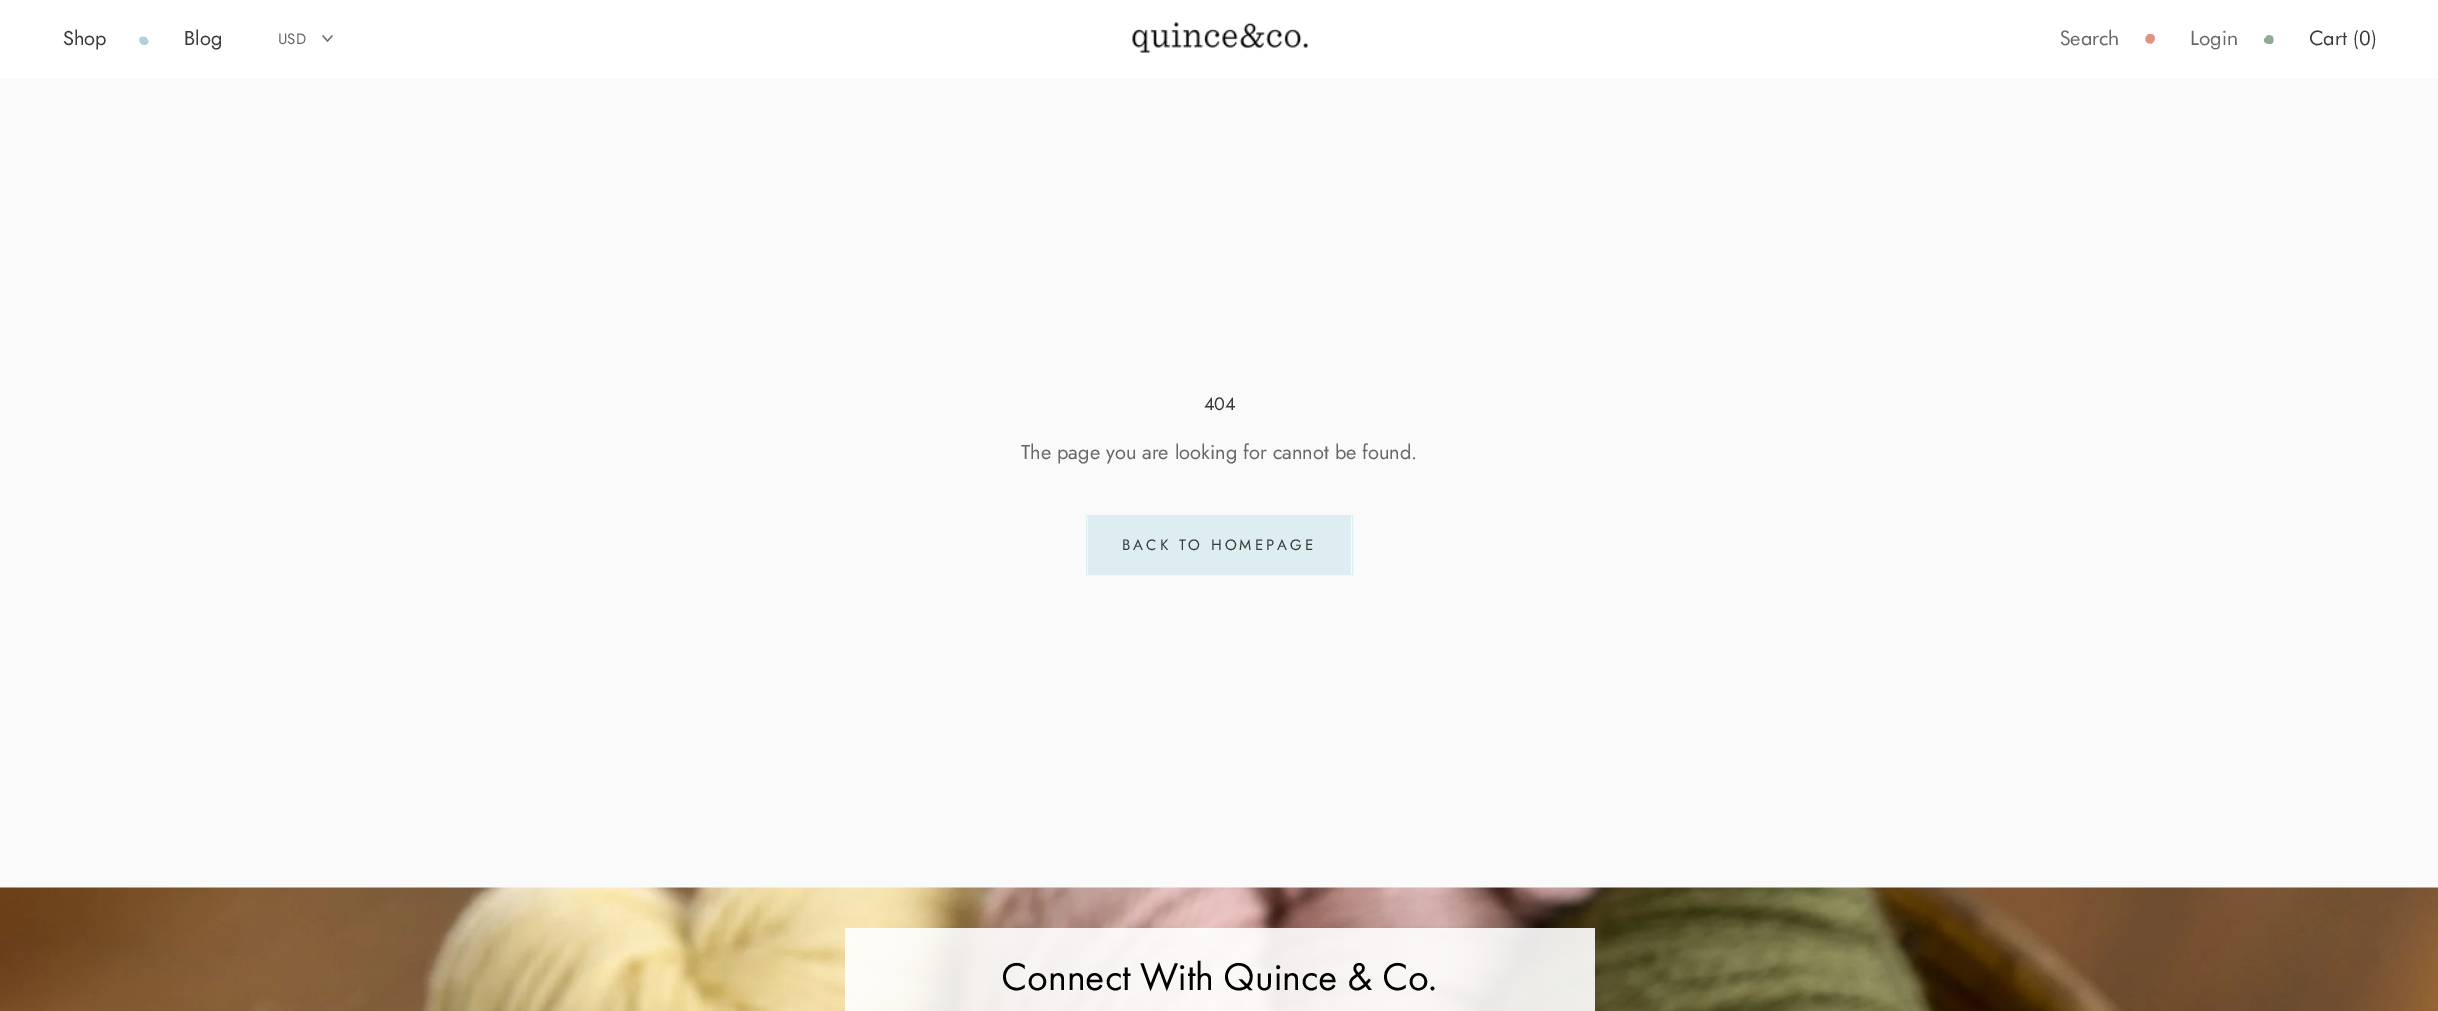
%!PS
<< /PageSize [2438 1011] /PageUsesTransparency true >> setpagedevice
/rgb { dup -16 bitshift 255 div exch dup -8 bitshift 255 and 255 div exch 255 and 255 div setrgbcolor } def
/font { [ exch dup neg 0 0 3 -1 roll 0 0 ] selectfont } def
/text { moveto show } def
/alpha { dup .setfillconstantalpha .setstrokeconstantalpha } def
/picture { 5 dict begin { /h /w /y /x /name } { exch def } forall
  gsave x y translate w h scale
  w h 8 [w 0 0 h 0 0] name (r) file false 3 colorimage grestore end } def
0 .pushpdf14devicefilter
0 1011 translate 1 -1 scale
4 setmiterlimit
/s1 { /Jost-Regular 20 font 16#3B3A3A rgb } def
/s2 { /Jost-Regular 15 font 16#686767 rgb } def
/s3 { /Futura-Regular 20 font 16#686767 rgb } def
/s4 { /Futura-Regular 20 font 16#3B3A3A rgb } def
/s5 { /Jost-Regular 18 font 16#3B3A3A rgb } def
/s6 { /Jost-Regular 20 font 16#686767 rgb } def
/s7 { /FuturaPT-Regular 40 font 16#000000 rgb } def
16#FAFAFA rgb
0 0 2438 1011 rectfill
16#FFFFFF rgb
0 0 2438 78 rectfill
s1
(Shop) 63 45 text
(pic1.raw) 139 36 10 9 picture
(Blog) 184 45 text
s2
(USD) 278 44 text
16#6A6A6A rgb
1.2 setlinewidth
2 setlinecap
332 36 moveto 327.5 41 lineto 323 36 lineto stroke
(pic2.raw) 1132 22 176 31 picture
s3
(Search) 2060 45 text
(pic3.raw) 2145 34 10 10 picture
(Login) 2190 45 text
(pic4.raw) 2264 35 10 9 picture
s4
(Cart \(0\)) 2309 45 text
s5
(404) 1204 410 text
s6
(The page you are looking for cannot be found.) 1021 459 text
16#DEEDF1 rgb
1 setlinewidth
0 setlinecap
1086.5 515.5 266 59 rectstroke
1088 516 263 58 rectfill
/Jost-Regular 15 font
16#3B3A3A rgb
1122 550 moveto 3 0 (BACK TO HOMEPAGE) ashow
(pic5.raw) 0 887 2438 124 picture
0.9 alpha
16#FFFFFF rgb
845 928 750 83 rectfill
1 alpha
s7
(Connect With Quince & Co.) 1001 990 text
.poppdf14devicefilter showpage
